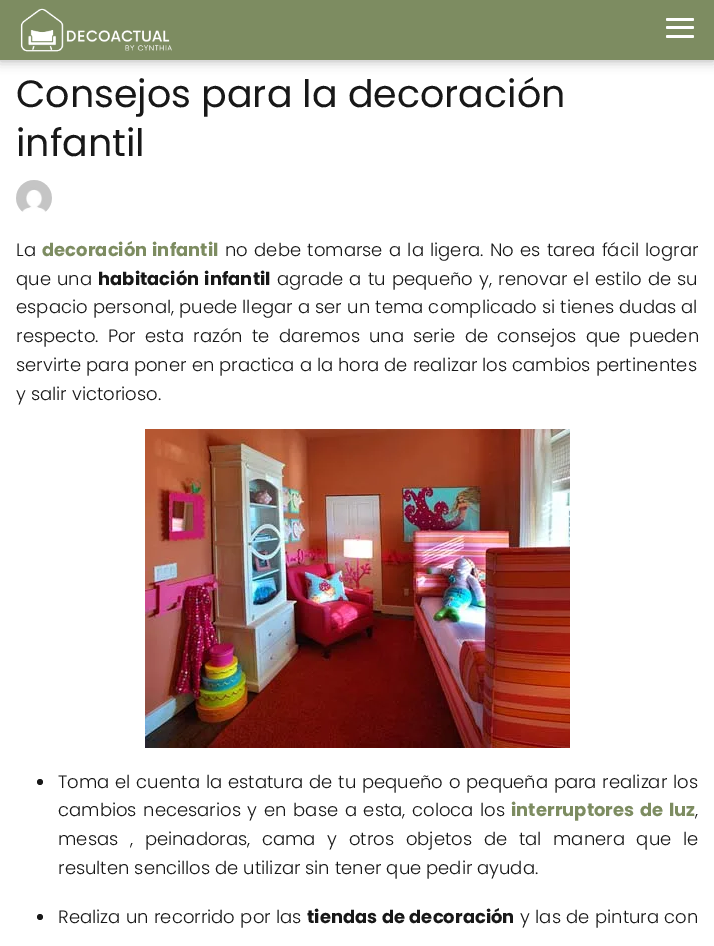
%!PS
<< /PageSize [714 946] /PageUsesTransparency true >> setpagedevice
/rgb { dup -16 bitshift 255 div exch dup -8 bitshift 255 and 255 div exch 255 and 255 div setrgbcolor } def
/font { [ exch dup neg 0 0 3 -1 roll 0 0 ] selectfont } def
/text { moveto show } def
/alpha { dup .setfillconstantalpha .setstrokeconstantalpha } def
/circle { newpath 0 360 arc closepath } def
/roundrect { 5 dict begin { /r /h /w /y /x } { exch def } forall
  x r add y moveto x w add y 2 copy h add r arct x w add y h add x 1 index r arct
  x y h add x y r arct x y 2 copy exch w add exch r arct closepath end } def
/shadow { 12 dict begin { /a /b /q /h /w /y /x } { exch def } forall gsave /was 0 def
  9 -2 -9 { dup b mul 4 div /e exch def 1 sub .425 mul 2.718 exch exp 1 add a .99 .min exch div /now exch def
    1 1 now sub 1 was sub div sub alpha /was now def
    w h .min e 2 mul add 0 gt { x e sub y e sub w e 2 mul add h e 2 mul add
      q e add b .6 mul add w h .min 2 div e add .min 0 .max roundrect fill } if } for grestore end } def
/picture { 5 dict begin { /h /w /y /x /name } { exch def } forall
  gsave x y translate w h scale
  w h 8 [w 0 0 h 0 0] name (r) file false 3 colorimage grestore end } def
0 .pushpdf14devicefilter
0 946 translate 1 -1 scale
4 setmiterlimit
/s1 { /Poppins-Regular 38 font 16#181818 rgb } def
/s2 { /Poppins-Light 18 font 16#181818 rgb } def
16#FFFFFF rgb
0 0 714 946 rectfill
16#000000 rgb
0 1 714 60 0 6 0.3 shadow
16#7D8C61 rgb
0 0 714 60 rectfill
(pic1.raw) 20 8 152 44 picture
16#FFFFFF rgb
666 18 28 3 1.5 roundrect fill
666 26 28 3 1.5 roundrect fill
666 35 28 3 1.5 roundrect fill
s1
(Consejos para la decoración) 16 107 text
(infantil) 16 156 text
(pic2.raw) 16 180 36 32 picture
s2
(La) 16 256 text
/Poppins-Bold 18 font
16#7D8C61 rgb
42 256 moveto 1 0 32 (decoración infantil) widthshow
/Poppins-Light 18 font
16#181818 rgb
225 256 moveto 1.4 0 32 (no debe tomarse a la ligera. No es tarea fácil lograr) widthshow
16 285 moveto 1.25 0 32 (que una) widthshow
/Poppins-Bold 18 font
98 285 moveto 1.25 0 32 (habitación infantil) widthshow
/Poppins-Light 18 font
277 285 moveto 1.25 0 32 (agrade a tu pequeño y, renovar el estilo de su) widthshow
16 313 moveto 0.25 0 32 (espacio personal, puede llegar a ser un tema complicado si tienes dudas al) widthshow
16 342 moveto 4.25 0 32 (respecto. Por esta razón te daremos una serie de consejos que pueden) widthshow
(servirte para poner en practica a la hora de realizar los cambios pertinentes) 16 371 text
(y salir victorioso.) 16 400 text
(pic3.raw) 145 429 425 319 picture
40 782 3 circle fill
58 788 moveto 0.9 0 32 (Toma el cuenta la estatura de tu pequeño o pequeña para realizar los) widthshow
58 816 moveto 1.75 0 32 (cambios necesarios y en base a esta, coloca los) widthshow
/Poppins-Bold 18 font
16#7D8C61 rgb
511 816 moveto 1.75 0 32 (interruptores de luz) widthshow
s2
(,) 695 816 text
58 845 moveto 6.75 0 32 (mesas , peinadoras, cama y otros objetos de tal manera que le) widthshow
(resulten sencillos de utilizar sin tener que pedir ayuda.) 58 874 text
40 917 3 circle fill
58 923 moveto 0.5 0 32 (Realiza un recorrido por las) widthshow
/Poppins-Bold 18 font
307 923 moveto 0.5 0 32 (tiendas de decoración) widthshow
/Poppins-Light 18 font
520 923 moveto 0.5 0 32 (y las de pintura con) widthshow
.poppdf14devicefilter showpage
